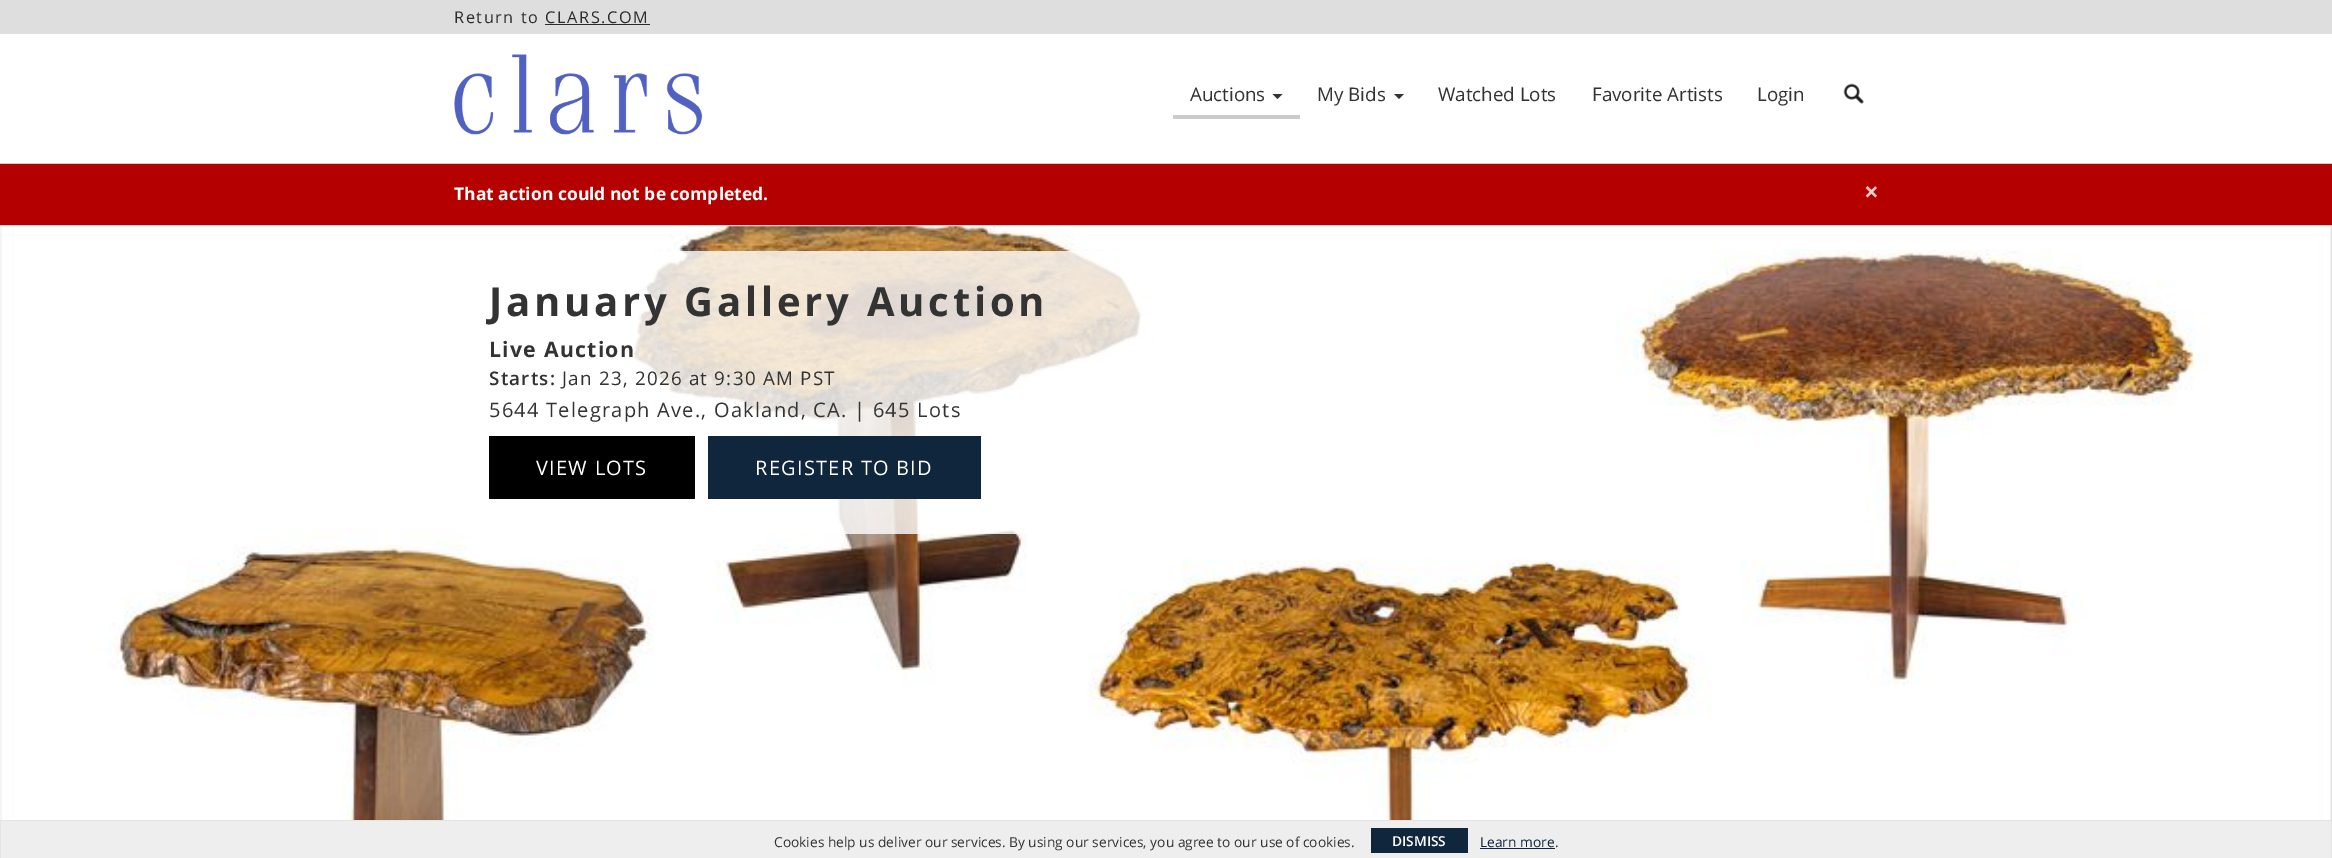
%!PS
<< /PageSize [2332 858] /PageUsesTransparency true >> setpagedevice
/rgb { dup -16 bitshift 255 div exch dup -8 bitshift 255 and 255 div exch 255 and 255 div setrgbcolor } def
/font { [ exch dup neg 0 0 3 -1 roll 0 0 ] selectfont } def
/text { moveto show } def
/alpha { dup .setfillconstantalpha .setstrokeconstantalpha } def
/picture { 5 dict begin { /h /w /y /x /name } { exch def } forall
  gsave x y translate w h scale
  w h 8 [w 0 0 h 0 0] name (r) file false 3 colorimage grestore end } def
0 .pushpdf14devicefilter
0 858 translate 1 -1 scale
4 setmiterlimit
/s1 { /OpenSans-Regular 18.75 font 16#333333 rgb } def
/s2 { /OpenSans-Bold 17.5 font 16#FFFFFF rgb } def
/s3 { /OpenSans-Bold 26 font 16#F0CCCC rgb } def
/s4 { /OpenSans-Regular 13.75 font 16#333333 rgb } def
/s5 { /OpenSans-SemiBold 13.75 font 16#FFFFFF rgb } def
/s6 { /OpenSans-Regular 13.75 font 16#10263D rgb } def
16#FFFFFF rgb
0 0 2332 858 rectfill
16#DEDEDE rgb
0 0 2332 34 rectfill
/OpenSans-Regular 16.25 font
16#2B2B2B rgb
454 23 moveto 1.6 0 (Return to CLARS.COM) ashow
545 24 105 1 rectfill
(pic1.raw) 454 54 249 81 picture
16#CCCCCC rgb
1173 115 127 4 rectfill
s1
(Auctions) 1190 101 text
1272.5 94 moveto 1282.5 94 lineto 1277.5 99 lineto closepath fill
(My Bids) 1317 101 text
1394 94 moveto 1404 94 lineto 1399 99 lineto closepath fill
(Watched Lots) 1438 101 text
(Favorite Artists) 1592 101 text
(Login) 1757 101 text
(pic2.raw) 1843 83 21 21 picture
16#CCCCCC rgb
0 163 2332 1 rectfill
16#B50000 rgb
0 164 2332 61 rectfill
16#EBCCD1 rgb
0 225 2332 1 rectfill
s2
(That action could not be completed.) 454 200 text
s3
(×) 1864 201 text
(pic3.raw) 0 226 2332 594 picture
0.8 alpha
16#FFFFFF rgb
454 251 698 283 rectfill
/OpenSans-Bold 40 font
1 alpha
16#333333 rgb
489 316 moveto 3.75 0 (January Gallery Auction) ashow
/OpenSans-Bold 21.25 font
489 357 moveto 1.25 0 (Live Auction) ashow
/OpenSans-SemiBold 18.75 font
489 385 moveto 1.25 0 (Starts:) ashow
/OpenSans-Regular 18.75 font
562 385 moveto 1.25 0 (Jan 23, 2026 at 9:30 AM PST) ashow
/OpenSans-Regular 20 font
489 417 moveto 1.25 0 (5644 Telegraph Ave., Oakland, CA. | 645 Lots) ashow
16#000000 rgb
489 436 206 63 rectfill
16#FFFFFF rgb
536 475 moveto 1.25 0 (VIEW LOTS) ashow
16#10263D rgb
708 436 273 63 rectfill
16#FFFFFF rgb
755 475 moveto 1.25 0 (REGISTER TO BID) ashow
16#EEEEEE rgb
1 821 2330 37 rectfill
16#E4E4E4 rgb
0 820 2332 1 rectfill
2331 820 1 38 rectfill
0 820 1 38 rectfill
s4
(Cookies help us deliver our services. By using our services, you agree to our use of cookies.) 774 847 text
16#10263D rgb
1371 828 97 25 rectfill
s5
(DISMISS) 1392 846 text
s6
(Learn more) 1480 847 text
1480 848 75 1 rectfill
s4
(.) 1555 847 text
.poppdf14devicefilter showpage
